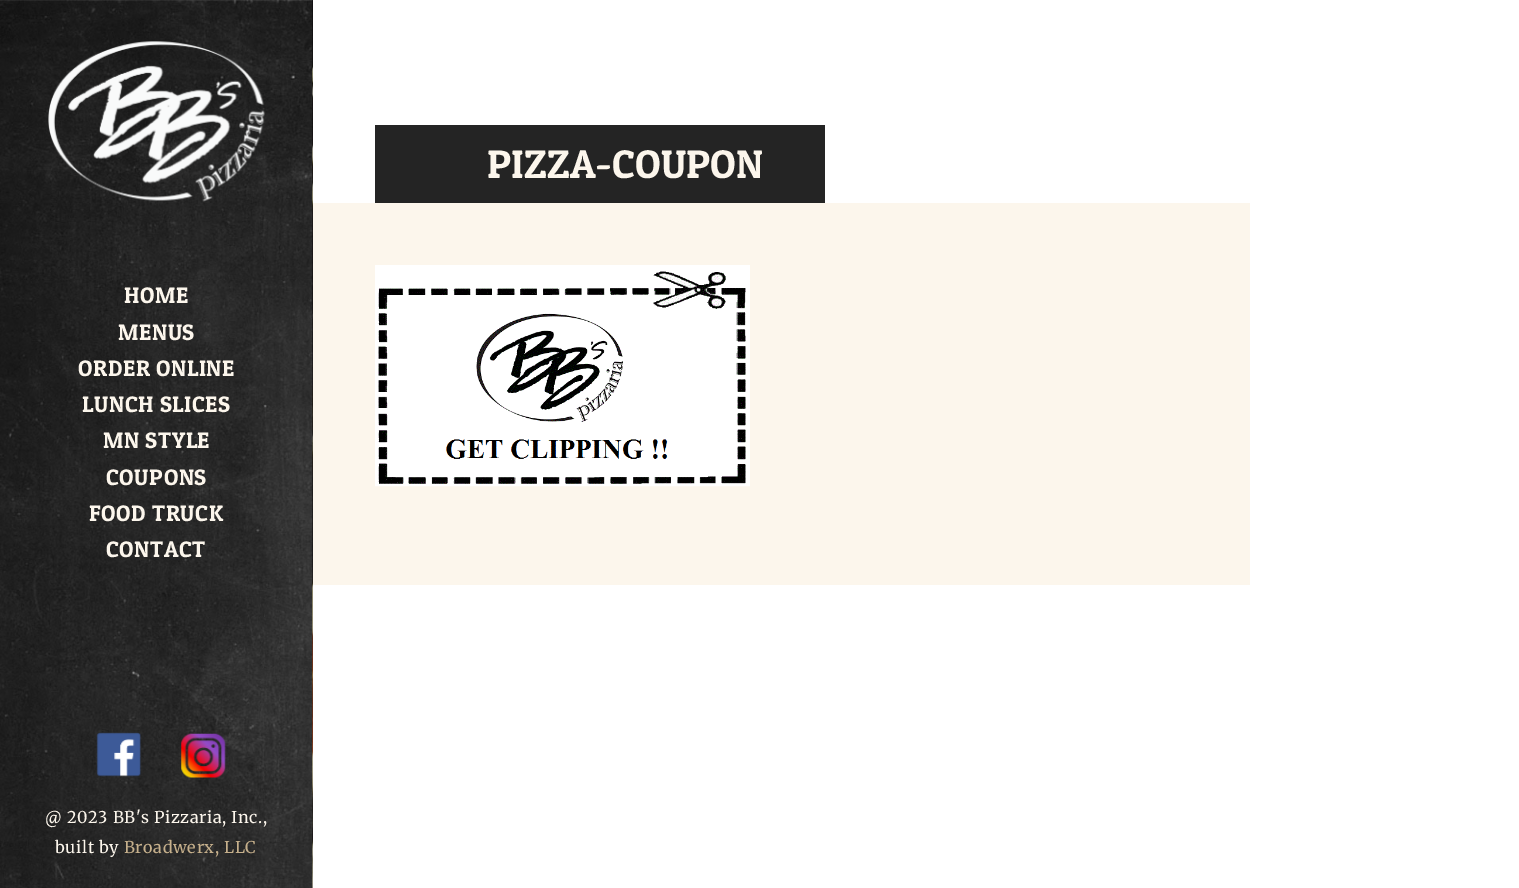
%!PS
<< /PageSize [1519 888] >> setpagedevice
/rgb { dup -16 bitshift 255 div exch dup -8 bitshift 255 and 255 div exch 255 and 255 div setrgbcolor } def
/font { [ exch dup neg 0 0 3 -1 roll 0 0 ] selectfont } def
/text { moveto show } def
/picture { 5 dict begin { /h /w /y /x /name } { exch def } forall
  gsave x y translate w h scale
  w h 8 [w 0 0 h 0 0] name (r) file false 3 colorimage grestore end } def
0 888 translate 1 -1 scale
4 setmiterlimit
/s1 { /PatuaOne-Regular 40 font 16#FCF6EC rgb } def
16#FFFFFF rgb
0 0 1519 888 rectfill
(pic1.raw) 312 0 1 888 picture
16#242424 rgb
375 125 450 78 rectfill
s1
(PIZZA-COUPON) 487 178 text
313 203 937 382 rectfill
(pic2.raw) 375 265 375 222 picture
(pic3.raw) 0 0 313 888 picture
(pic4.raw) 48 41 218 161 picture
/PatuaOne-Regular 22.5 font
124 303 moveto 0.6 0 (HOME) ashow
118 340 moveto 0.6 0 (MENUS) ashow
78 376 moveto 0.6 0 (ORDER ONLINE) ashow
82 412 moveto 0.6 0 (LUNCH SLICES) ashow
103 448 moveto 0.6 0 (MN STYLE) ashow
106 485 moveto 0.6 0 (COUPONS) ashow
89 521 moveto 0.6 0 (FOOD TRUCK) ashow
106 557 moveto 0.6 0 (CONTACT) ashow
(pic5.raw) 96 732 45 45 picture
(pic6.raw) 181 733 45 45 picture
/Merriweather-Light 16.25 font
45 823 moveto 0.6 0 (@ 2023 BB's Pizzaria, Inc.,) ashow
55 853 moveto 0.6 0 (built by) ashow
16#C6B08C rgb
124 853 moveto 0.6 0 (Broadwerx, LLC) ashow
showpage
